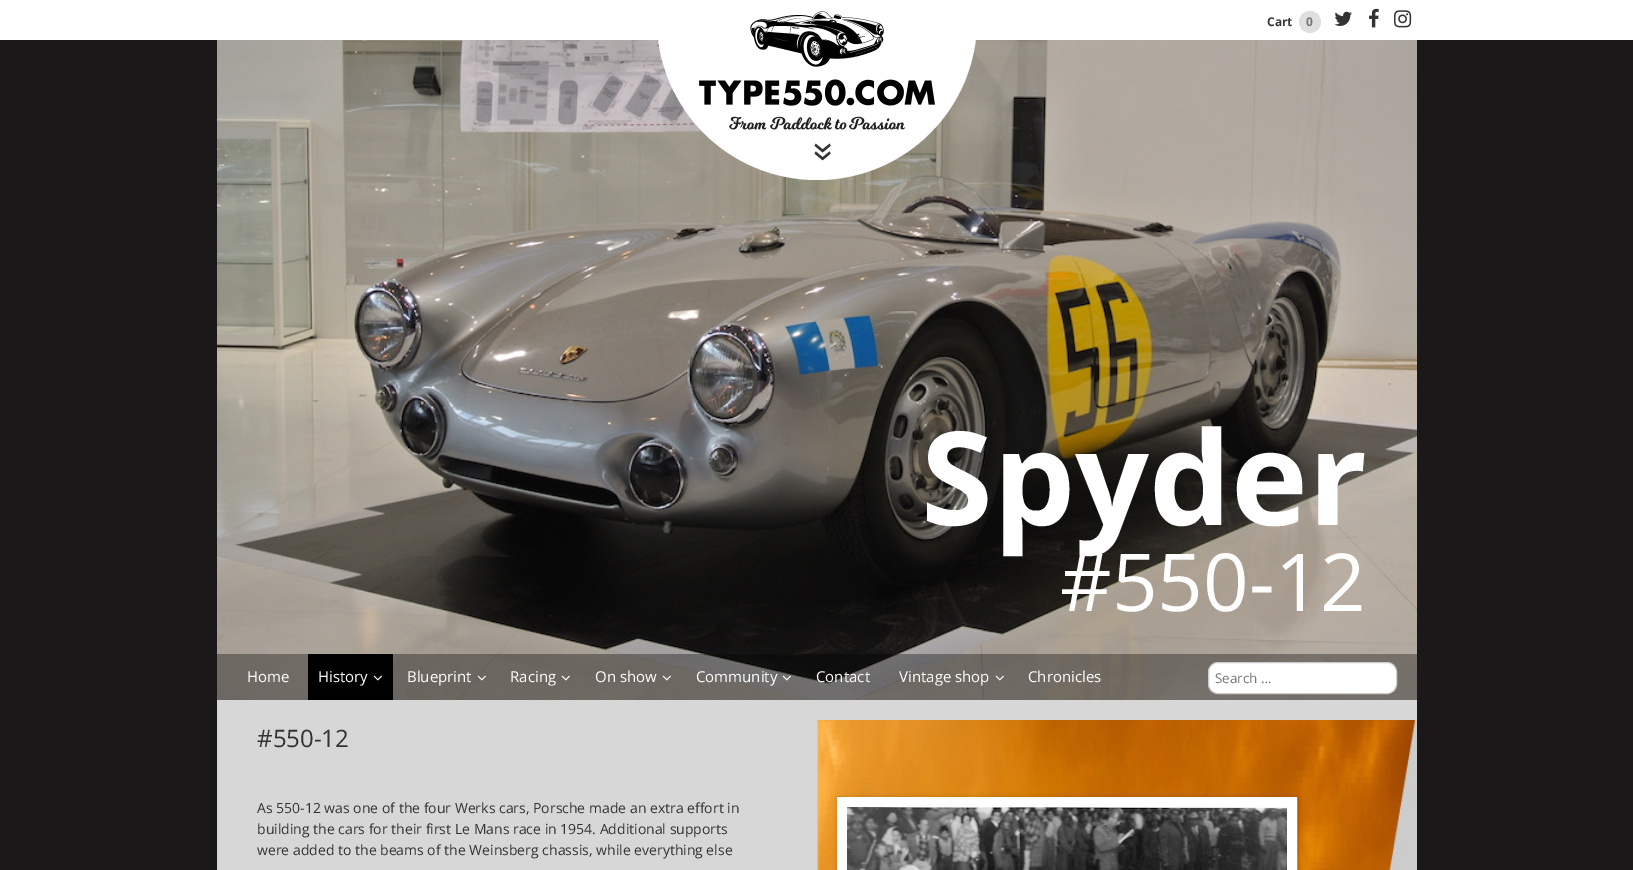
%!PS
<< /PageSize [1633 870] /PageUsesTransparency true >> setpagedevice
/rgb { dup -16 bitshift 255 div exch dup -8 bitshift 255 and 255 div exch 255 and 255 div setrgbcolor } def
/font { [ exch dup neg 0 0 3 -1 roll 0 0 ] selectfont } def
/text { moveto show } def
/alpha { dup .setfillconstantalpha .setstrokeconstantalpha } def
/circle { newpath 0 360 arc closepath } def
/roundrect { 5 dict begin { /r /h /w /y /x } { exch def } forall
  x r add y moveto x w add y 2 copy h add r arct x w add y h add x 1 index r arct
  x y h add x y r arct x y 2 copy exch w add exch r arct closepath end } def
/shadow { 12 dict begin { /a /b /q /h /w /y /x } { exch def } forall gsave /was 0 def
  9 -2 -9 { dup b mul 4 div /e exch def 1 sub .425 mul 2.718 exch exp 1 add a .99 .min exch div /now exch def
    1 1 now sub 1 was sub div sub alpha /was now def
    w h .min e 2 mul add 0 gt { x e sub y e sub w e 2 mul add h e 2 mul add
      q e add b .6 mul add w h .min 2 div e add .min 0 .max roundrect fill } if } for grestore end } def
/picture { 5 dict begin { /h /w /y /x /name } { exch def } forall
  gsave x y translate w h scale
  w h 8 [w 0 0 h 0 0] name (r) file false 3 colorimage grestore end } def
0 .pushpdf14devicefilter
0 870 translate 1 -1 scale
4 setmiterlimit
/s1 { /OpenSans-Bold 12 font 16#333333 rgb } def
/s2 { /OpenSans-Bold 12 font 16#757575 rgb } def
/s3 { /OpenSans-Bold 130 font 16#FFFFFF rgb } def
/s4 { /OpenSans-Regular 80 font 16#FFFFFF rgb } def
/s5 { /OpenSans-Regular 15 font 16#FFFFFF rgb } def
/s6 { /OpenSans-Regular 13.5 font 16#757575 rgb } def
/s7 { /OpenSans-Regular 24 font 16#333333 rgb } def
/s8 { /OpenSans-Regular 14 font 16#333333 rgb } def
16#FFFFFF rgb
0 0 1633 870 rectfill
16#1B181A rgb
0 40 1633 830 rectfill
(pic1.raw) 217 40 1200 660 picture
s1
(Cart) 1267 26 text
16#DFDFDF rgb
1310 22 11 circle fill
s2
(0) 1306 26 text
(pic2.raw) 1334 11 18 15 picture
(pic3.raw) 1369 8 10 20 picture
(pic4.raw) 1394 10 18 18 picture
16#FFFFFF rgb
817 20 160 circle fill
(pic5.raw) 699 11 236 119 picture
/OpenSans-Regular 40 font
16#333333 rgb
gsave 812 142 translate 90 rotate 0 0 moveto (») show grestore
s3
(Spyder) 921 525 text
s4
(#550-12) 1060 611 text
0.34 alpha
16#000000 rgb
217 654 1200 46 rectfill
1 alpha
s5
(Home) 247 682 text
16#000000 rgb
308 654 85 46 rectfill
s5
(History) 318 682 text
(pic6.raw) 373 675 9 6 picture
(Blueprint) 407 682 text
(pic7.raw) 477 675 9 6 picture
(Racing) 510 682 text
(pic8.raw) 561 675 9 6 picture
(On show) 595 682 text
(pic9.raw) 662 675 9 6 picture
(Community) 696 682 text
(pic10.raw) 782 675 9 6 picture
(Contact) 816 682 text
(Vintage shop) 899 682 text
(pic11.raw) 995 675 9 6 picture
(Chronicles) 1028 682 text
1208.5 662.5 188 31 9.5 roundrect gsave fill grestore
16#CCCCCC rgb
stroke
s6
(Search …) 1215 683 text
16#D7D7D7 rgb
217 700 1200 170 rectfill
(pic12.raw) 817 720 600 150 picture
s7
(#550-12) 257 747 text
s8
(As 550-12 was one of the four Werks cars, Porsche made an extra effort in) 257 813 text
(building the cars for their first Le Mans race in 1954. Additional supports) 257 834 text
(were added to the beams of the Weinsberg chassis, while everything else) 257 855 text
16#000000 rgb
838 798 460 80 0 2.5 0.3 shadow
16#FFFFFF rgb
10 setlinewidth
842 802 450 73 rectstroke
(pic13.raw) 847 807 440 63 picture
.poppdf14devicefilter showpage
